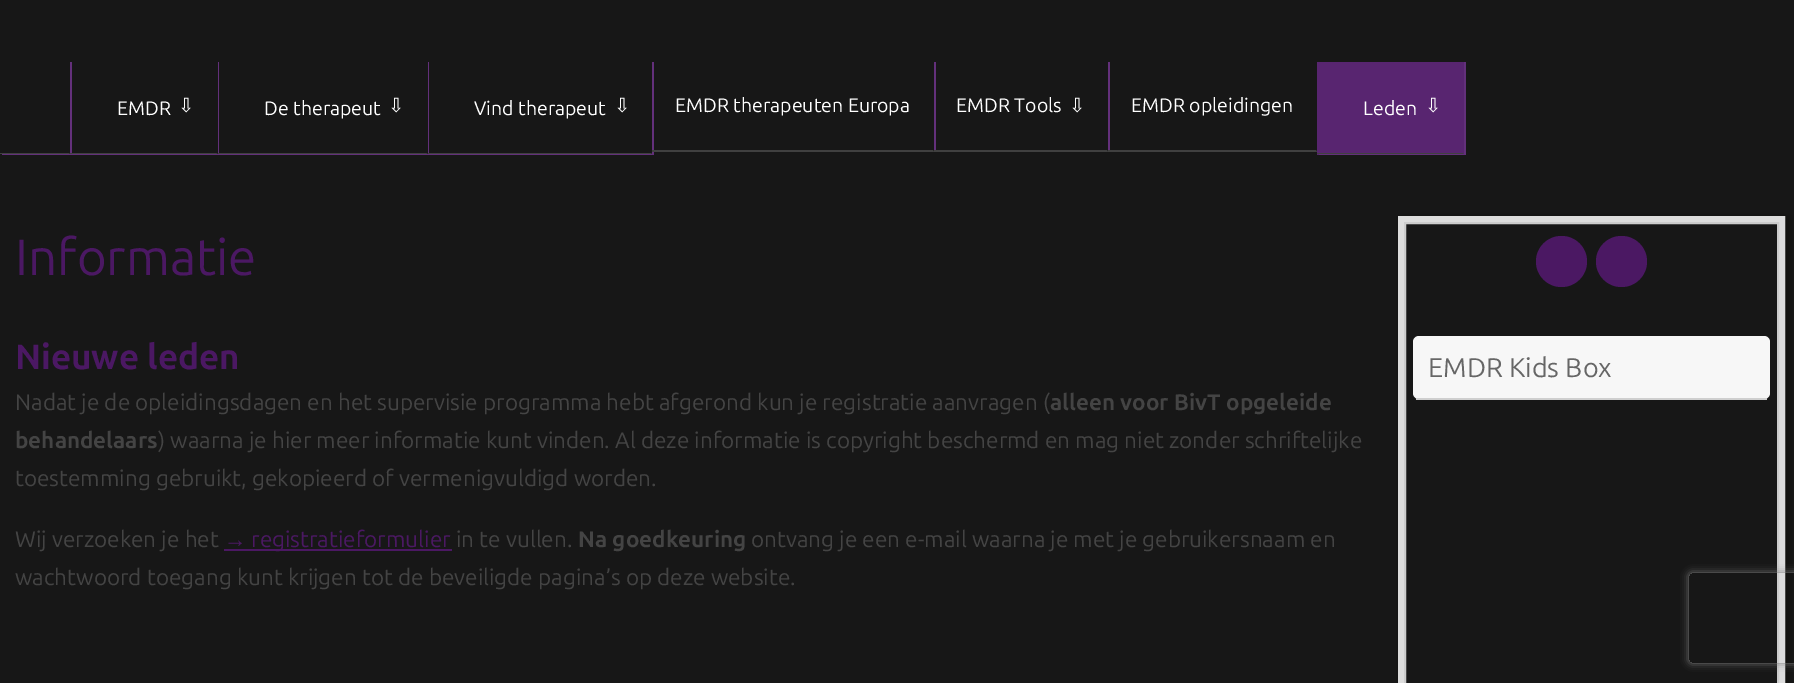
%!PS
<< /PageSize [1794 683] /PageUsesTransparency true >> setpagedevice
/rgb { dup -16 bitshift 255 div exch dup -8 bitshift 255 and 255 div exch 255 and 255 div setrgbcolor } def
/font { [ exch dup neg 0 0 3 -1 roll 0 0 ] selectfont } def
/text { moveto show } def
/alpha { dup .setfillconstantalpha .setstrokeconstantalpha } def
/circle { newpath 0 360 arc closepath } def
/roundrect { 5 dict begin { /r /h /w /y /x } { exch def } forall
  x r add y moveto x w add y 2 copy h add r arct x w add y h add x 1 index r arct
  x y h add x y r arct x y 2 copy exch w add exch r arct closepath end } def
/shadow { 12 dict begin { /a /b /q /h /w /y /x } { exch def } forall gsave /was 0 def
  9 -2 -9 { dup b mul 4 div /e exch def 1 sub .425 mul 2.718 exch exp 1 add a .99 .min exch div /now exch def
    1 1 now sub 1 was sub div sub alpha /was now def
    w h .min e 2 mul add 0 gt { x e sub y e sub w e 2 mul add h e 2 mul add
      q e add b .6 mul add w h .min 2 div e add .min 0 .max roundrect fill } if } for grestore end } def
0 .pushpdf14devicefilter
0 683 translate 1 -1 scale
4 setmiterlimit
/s1 { /Ubuntu-Regular 19.5 font 16#FFFFFF rgb } def
/s2 { /DejaVuSans-Regular 19.5 font 16#FFFFFF rgb } def
/s3 { /Ubuntu-Regular 51 font 16#4B1863 rgb } def
/s4 { /Ubuntu-Bold 35 font 16#4B1863 rgb } def
/s5 { /Ubuntu-Regular 22.5 font 16#444444 rgb } def
/s6 { /Ubuntu-Bold 22.5 font 16#444444 rgb } def
/s7 { /LiberationSerif-Regular 22.5 font 16#4B1863 rgb } def
/s8 { /Ubuntu-Regular 22.5 font 16#4B1863 rgb } def
/s9 { /Ubuntu-Regular 27 font 16#666666 rgb } def
16#171717 rgb
0 0 1794 683 rectfill
16#63307B rgb
2 154 moveto 2 155 lineto 72 155 lineto 72 62 lineto 70 62 lineto 70 154 lineto closepath fill
16#404040 rgb
70 154 moveto 0 154 lineto 0 153 lineto 69 153 lineto closepath fill
16#63307B rgb
72 154 moveto 72 155 lineto 219 155 lineto 219 62 lineto 218 62 lineto 218 154 lineto closepath fill
16#404040 rgb
218 154 moveto 70 154 lineto 70 153 lineto 216 153 lineto closepath fill
s1
(EMDR) 117 115 text
s2
(⇩) 178 112 text
16#63307B rgb
219 154 moveto 219 155 lineto 429 155 lineto 429 62 lineto 428 62 lineto 428 154 lineto closepath fill
16#404040 rgb
428 154 moveto 218 154 lineto 218 153 lineto 426 153 lineto closepath fill
s1
(De therapeut) 264 115 text
s2
(⇩) 388 112 text
16#63307B rgb
429 154 moveto 429 155 lineto 654 155 lineto 654 62 lineto 652 62 lineto 652 154 lineto closepath fill
16#404040 rgb
652 154 moveto 428 154 lineto 428 153 lineto 651 153 lineto closepath fill
s1
(Vind therapeut) 474 115 text
s2
(⇩) 614 112 text
16#63307B rgb
654 152 moveto 936 152 lineto 936 62 lineto 934 62 lineto 934 152 lineto closepath fill
16#404040 rgb
934 152 moveto 652 152 lineto 652 150 lineto 933 150 lineto closepath fill
s1
(EMDR therapeuten Europa) 675 112 text
16#63307B rgb
936 152 moveto 1110 152 lineto 1110 62 lineto 1108 62 lineto 1108 152 lineto closepath fill
16#404040 rgb
1108 152 moveto 934 152 lineto 934 150 lineto 1107 150 lineto closepath fill
s1
(EMDR Tools) 956 112 text
s2
(⇩) 1069 112 text
16#404040 rgb
1317 152 moveto 1108 152 lineto 1108 150 lineto 1316 150 lineto closepath fill
s1
(EMDR opleidingen) 1131 112 text
16#582570 rgb
1317 62 147 93 rectfill
16#63307B rgb
1319 154 moveto 1319 155 lineto 1466 155 lineto 1466 62 lineto 1464 62 lineto 1464 154 lineto closepath fill
16#404040 rgb
1464 154 moveto 1317 154 lineto 1317 153 lineto 1462 153 lineto closepath fill
s1
(Leden) 1363 115 text
s2
(⇩) 1425 112 text
s3
(Informatie) 15 275 text
s4
(Nieuwe leden) 15 369 text
s5
(Nadat je de opleidingsdagen en het supervisie programma hebt afgerond kun je registratie aanvragen \() 15 410 text
s6
(alleen voor BivT opgeleide) 1050 410 text
(behandelaars) 15 448 text
s5
(\) waarna je hier meer informatie kunt vinden. Al deze informatie is copyright beschermd en mag niet zonder schriftelijke) 158 448 text
(toestemming gebruikt, gekopieerd of vermenigvuldigd worden.) 15 486 text
(Wij verzoeken je het) 15 547 text
s7
(→) 224 547 text
224 549 228 2 rectfill
s8
(registratieformulier) 251 547 text
s5
(in te vullen.) 456 547 text
s6
(Na goedkeuring) 578 547 text
s5
(ontvang je een e-mail waarna je met je gebruikersnaam en) 751 547 text
(wachtwoord toegang kunt krijgen tot de beveiligde pagina’s op deze website.) 15 585 text
gsave
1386 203 moveto 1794 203 lineto 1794 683 lineto 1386 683 lineto closepath 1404 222 moveto 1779 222 lineto 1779 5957 lineto 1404 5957 lineto closepath eoclip newpath
16#0A0A00 rgb
1401 218 387 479 0 4.5 0.5 shadow
grestore
16#DDDDDD rgb
6 setlinewidth
1401 219 381 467 rectstroke
16#CCCCCC rgb
2 setlinewidth
1405 223 373 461 rectstroke
16#4B1863 rgb
1561.5 261.5 25.5 circle fill
1621.5 261.5 25.5 circle fill
16#F7F7F7 rgb
1413 336 357 63 6 roundrect fill
16#CFCFCF rgb
1416 398 351 2 rectfill
s9
(EMDR Kids Box) 1428 377 text
gsave
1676 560 moveto 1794 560 lineto 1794 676 lineto 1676 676 lineto closepath 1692 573 moveto 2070 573 lineto 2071.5 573 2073 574.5 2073 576 curveto 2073 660 lineto 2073 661.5 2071.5 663 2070 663 curveto 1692 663 lineto 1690.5 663 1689 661.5 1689 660 curveto 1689 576 lineto 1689 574.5 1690.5 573 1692 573 curveto closepath eoclip newpath
16#808080 rgb
1689 573 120 90 3 4 1 shadow
grestore
.poppdf14devicefilter showpage
